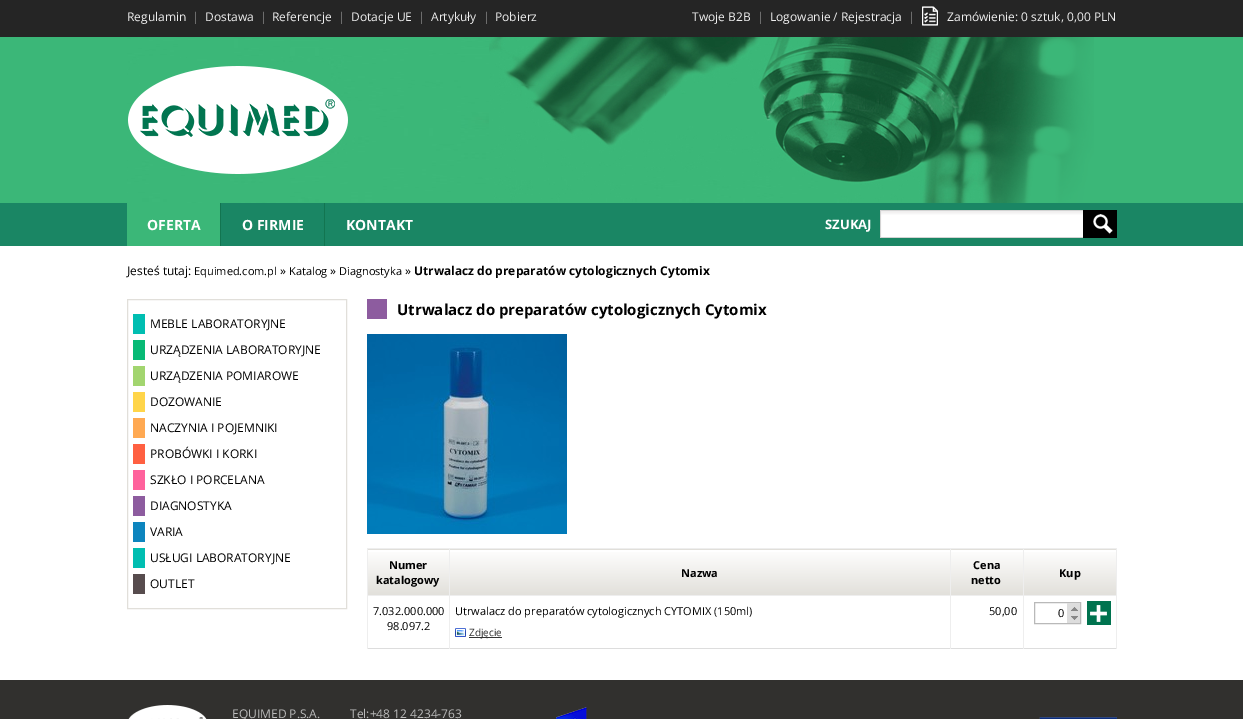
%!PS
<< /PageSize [1243 719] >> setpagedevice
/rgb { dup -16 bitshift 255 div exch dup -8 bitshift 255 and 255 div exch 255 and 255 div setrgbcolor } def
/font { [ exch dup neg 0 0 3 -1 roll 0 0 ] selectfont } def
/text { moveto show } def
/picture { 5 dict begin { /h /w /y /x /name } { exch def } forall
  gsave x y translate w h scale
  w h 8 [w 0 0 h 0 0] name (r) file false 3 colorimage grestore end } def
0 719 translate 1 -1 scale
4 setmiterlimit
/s1 { /OpenSans-Regular 12 font 16#EEEEEE rgb } def
/s2 { /OpenSans-Regular 12 font 16#888888 rgb } def
/s3 { /OpenSans-Bold 14 font 16#FFFFFF rgb } def
/s4 { /OpenSans-Bold 13 font 16#FFFFFF rgb } def
/s5 { /OpenSans-Regular 12 font 16#000000 rgb } def
/s6 { /OpenSans-Regular 11 font 16#000000 rgb } def
/s7 { /OpenSans-Bold 12 font 16#000000 rgb } def
/s8 { /OpenSans-Bold 15 font 16#000000 rgb } def
/s9 { /OpenSans-Bold 11 font 16#000000 rgb } def
/s10 { /OpenSans-Regular 10 font 16#333333 rgb } def
/s11 { /OpenSans-Regular 12 font 16#BBBBBB rgb } def
16#FFFFFF rgb
0 0 1243 719 rectfill
16#3BB778 rgb
0 37 1243 166 rectfill
16#252525 rgb
0 0 1243 37 rectfill
s1
(Regulamin) 127 21 text
s2
(|) 192 21 text
s1
(Dostawa) 205 21 text
s2
(|) 260 21 text
s1
(Referencje) 272 21 text
s2
(|) 338 21 text
s1
(Dotacje UE) 351 21 text
s2
(|) 418 21 text
s1
(Artykuły) 431 21 text
s2
(|) 483 21 text
s1
(Pobierz) 495 21 text
(Twoje B2B) 692 21 text
s2
(|) 757 21 text
s1
(Logowanie / Rejestracja) 770 21 text
s2
(|) 908 21 text
(pic1.raw) 922 6 16 20 picture
s1
(Zamówienie: 0 sztuk, 0,00 PLN) 947 21 text
(pic2.raw) 127 37 967 166 picture
16#1A8664 rgb
0 203 1243 43 rectfill
16#3BB778 rgb
127 203 93 43 rectfill
16#127550 rgb
220 203 1 43 rectfill
s3
(OFERTA) 147 230 text
16#127550 rgb
324 203 1 43 rectfill
s3
(O FIRMIE) 242 230 text
(KONTAKT) 346 230 text
s4
(SZUKAJ) 825 229 text
(pic3.raw) 880 210 203 28 picture
(pic4.raw) 1083 210 34 28 picture
s5
(Jesteś tutaj:) 127 275 text
s6
(Equimed.com.pl) 194 275 text
s5
(») 280 275 text
s6
(Katalog) 289 275 text
s5
(») 330 275 text
s6
(Diagnostyka) 339 275 text
s5
(») 405 275 text
s7
(Utrwalacz do preparatów cytologicznych Cytomix) 414 275 text
16#E1DFDA rgb
127.5 299.5 219 309 rectstroke
16#00BEB1 rgb
133 314 12 20 rectfill
s5
(MEBLE LABORATORYJNE) 150 328 text
16#07BA75 rgb
133 340 12 20 rectfill
s5
(URZĄDZENIA LABORATORYJNE) 150 354 text
16#A2D56F rgb
133 366 12 20 rectfill
s5
(URZĄDZENIA POMIAROWE) 150 380 text
16#FFD549 rgb
133 392 12 20 rectfill
s5
(DOZOWANIE) 150 406 text
16#FFA952 rgb
133 418 12 20 rectfill
s5
(NACZYNIA I POJEMNIKI) 150 432 text
16#FF6041 rgb
133 444 12 20 rectfill
s5
(PROBÓWKI I KORKI) 150 458 text
16#FF629C rgb
133 470 12 20 rectfill
s5
(SZKŁO I PORCELANA) 150 484 text
16#8D5C9F rgb
133 496 12 20 rectfill
s5
(DIAGNOSTYKA) 150 510 text
16#0D85BE rgb
133 522 12 20 rectfill
s5
(VARIA) 150 536 text
16#00BEB1 rgb
133 548 12 20 rectfill
s5
(USŁUGI LABORATORYJNE) 150 562 text
16#574C4E rgb
133 574 12 20 rectfill
s5
(OUTLET) 150 588 text
16#8D5C9F rgb
367 299 20 20 rectfill
s8
(Utrwalacz do preparatów cytologicznych Cytomix) 397 315 text
(pic5.raw) 367 334 200 200 picture
16#DDDDDD rgb
367 648 750 1 rectfill
gsave 367 549 moveto 450 549 lineto 450 550 lineto 367 550 lineto closepath clip newpath
<< /ShadingType 2 /ColorSpace /DeviceRGB /Coords [409 504 409 550] /Extend [true true] /Function << /FunctionType 2 /Domain [0 1] /C0 [0.996 0.996 0.996] /C1 [0.882 0.875 0.855] /N 1 >> >> shfill grestore
gsave 368 552 moveto 449 552 lineto 449 595 lineto 368 595 lineto closepath clip newpath
<< /ShadingType 2 /ColorSpace /DeviceRGB /Coords [409 550 409 596] /Extend [true true] /Function << /FunctionType 2 /Domain [0 1] /C0 [0.996 0.996 0.996] /C1 [0.882 0.875 0.855] /N 1 >> >> shfill grestore
16#EEEEEE rgb
1023 548 94 1 rectfill
gsave 1023 549 moveto 1116 549 lineto 1116 550 lineto 1023 550 lineto closepath clip newpath
<< /ShadingType 2 /ColorSpace /DeviceRGB /Coords [1070 504 1070 550] /Extend [true true] /Function << /FunctionType 2 /Domain [0 1] /C0 [0.996 0.996 0.996] /C1 [0.882 0.875 0.855] /N 1 >> >> shfill grestore
1023 595 94 1 rectfill
1023 595 1 54 rectfill
950 595 74 1 rectfill
1023 548 1 48 rectfill
950 548 74 1 rectfill
gsave 950 549 moveto 1023 549 lineto 1023 550 lineto 950 550 lineto closepath clip newpath
<< /ShadingType 2 /ColorSpace /DeviceRGB /Coords [987 504 987 550] /Extend [true true] /Function << /FunctionType 2 /Domain [0 1] /C0 [0.996 0.996 0.996] /C1 [0.882 0.875 0.855] /N 1 >> >> shfill grestore
950 595 1 54 rectfill
449 595 502 1 rectfill
950 548 1 48 rectfill
449 548 502 1 rectfill
449 595 1 54 rectfill
367 595 83 1 rectfill
449 548 1 48 rectfill
367 548 83 1 rectfill
367 595 1 54 rectfill
367 548 1 48 rectfill
s9
(Numer) 389 569 text
(katalogowy) 376 584 text
gsave 450 549 moveto 950 549 lineto 950 550 lineto 450 550 lineto closepath clip newpath
<< /ShadingType 2 /ColorSpace /DeviceRGB /Coords [700 504 700 550] /Extend [true true] /Function << /FunctionType 2 /Domain [0 1] /C0 [0.996 0.996 0.996] /C1 [0.882 0.875 0.855] /N 1 >> >> shfill grestore
gsave 450 552 moveto 950 552 lineto 950 595 lineto 450 595 lineto closepath clip newpath
<< /ShadingType 2 /ColorSpace /DeviceRGB /Coords [700 550 700 596] /Extend [true true] /Function << /FunctionType 2 /Domain [0 1] /C0 [0.996 0.996 0.996] /C1 [0.882 0.875 0.855] /N 1 >> >> shfill grestore
(Nazwa) 681 577 text
gsave 951 552 moveto 1023 552 lineto 1023 595 lineto 951 595 lineto closepath clip newpath
<< /ShadingType 2 /ColorSpace /DeviceRGB /Coords [987 550 987 596] /Extend [true true] /Function << /FunctionType 2 /Domain [0 1] /C0 [0.996 0.996 0.996] /C1 [0.882 0.875 0.855] /N 1 >> >> shfill grestore
(Cena) 973 569 text
(netto) 971 584 text
gsave 1024 552 moveto 1116 552 lineto 1116 595 lineto 1024 595 lineto closepath clip newpath
<< /ShadingType 2 /ColorSpace /DeviceRGB /Coords [1070 550 1070 596] /Extend [true true] /Function << /FunctionType 2 /Domain [0 1] /C0 [0.996 0.996 0.996] /C1 [0.882 0.875 0.855] /N 1 >> >> shfill grestore
16#EEEEEE rgb
1116 595 1 54 rectfill
1116 548 1 48 rectfill
s9
(Kup) 1059 577 text
s6
(7.032.000.000) 373 615 text
(98.097.2) 387 630 text
(Utrwalacz do preparatów cytologicznych CYTOMIX \(150ml\)) 455 615 text
(pic6.raw) 455 628 11 9 picture
16#333333 rgb
469 637 33 1 rectfill
s10
(Zdjęcie) 469 636 text
s6
(50,00) 989 615 text
16#B9B9B9 rgb
1034.5 602.5 46 21 rectstroke
s6
(0) 1058 617 text
16#DDDDDD rgb
1067 603 13 20 rectfill
(pic7.raw) 1071 607 7 4 picture
(pic8.raw) 1071 616 7 4 picture
16#00734F rgb
1087 601 24 24 rectfill
(pic9.raw) 1090 605 17 17 picture
16#31302E rgb
0 680 1243 39 rectfill
(pic10.raw) 128 705 79 14 picture
s11
(EQUIMED P.S.A.) 232 718 text
(Tel:+48 12 4234-763) 350 718 text
(pic11.raw) 556 707 561 12 picture
showpage
